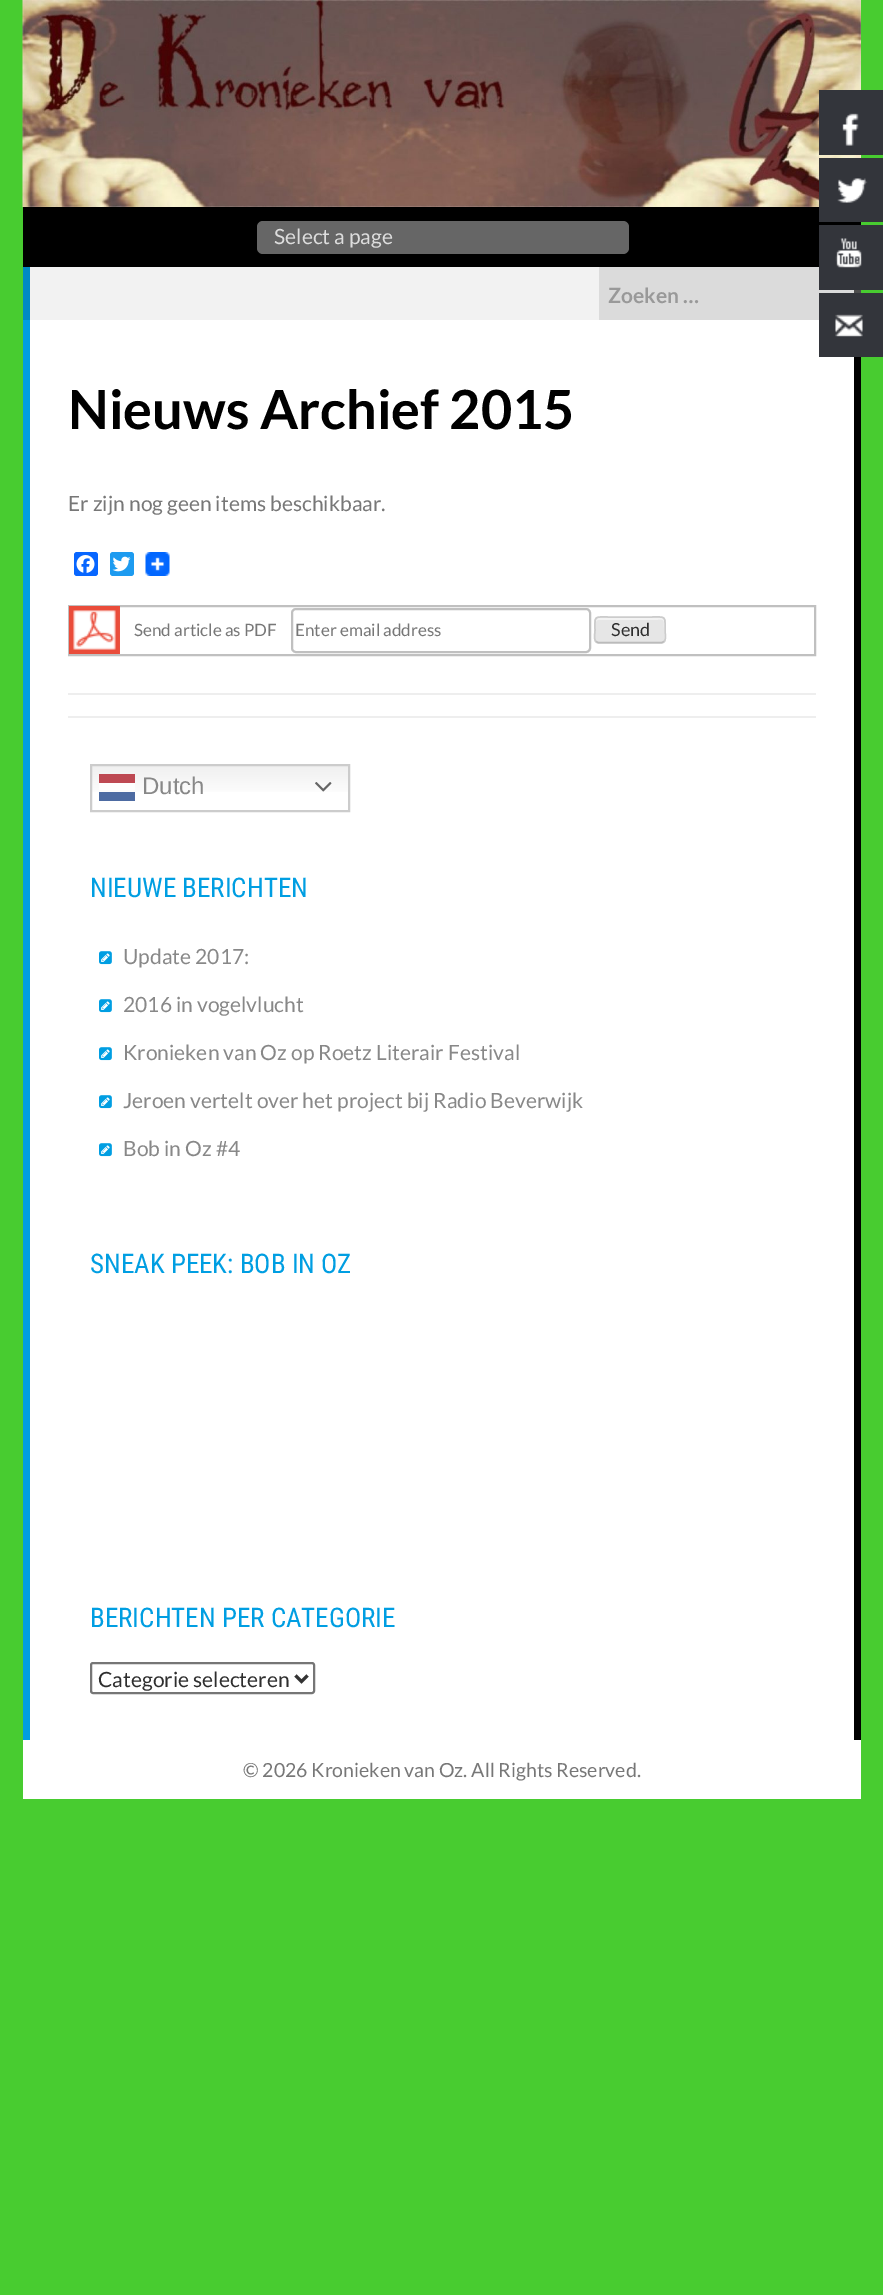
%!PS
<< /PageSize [883 2295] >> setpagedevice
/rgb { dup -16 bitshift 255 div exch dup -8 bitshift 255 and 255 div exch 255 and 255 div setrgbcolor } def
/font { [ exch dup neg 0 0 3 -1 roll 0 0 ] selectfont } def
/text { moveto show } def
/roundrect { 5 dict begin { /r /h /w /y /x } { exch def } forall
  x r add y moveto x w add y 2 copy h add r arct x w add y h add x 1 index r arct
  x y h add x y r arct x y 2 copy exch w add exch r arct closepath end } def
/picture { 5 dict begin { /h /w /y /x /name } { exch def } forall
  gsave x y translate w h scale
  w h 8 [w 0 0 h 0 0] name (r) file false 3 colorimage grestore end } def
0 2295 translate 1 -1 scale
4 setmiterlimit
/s1 { /Lato-Regular 21 font 16#DDDDDD rgb } def
/s2 { /Lato-Bold 21 font 16#999999 rgb } def
/s3 { /Lato-Bold 54 font 16#000000 rgb } def
/s4 { /Lato-Regular 21 font 16#777777 rgb } def
/s5 { /Lato-Regular 17 font 16#777777 rgb } def
/s6 { /Lato-Regular 18 font 16#2E2E2E rgb } def
/s7 { /LiberationSans-Regular 24 font 16#888888 rgb } def
/s8 { /RobotoCondensed-Regular 27 font 16#009EE2 rgb } def
/s9 { /Lato-Regular 21 font 16#888888 rgb } def
/s10 { /Lato-Regular 21 font 16#2E2E2E rgb } def
/s11 { /Lato-Regular 19.5 font 16#777777 rgb } def
16#48CC30 rgb
0 0 883 2295 rectfill
(pic1.raw) 22 0 839 207 picture
16#000000 rgb
23 207 838 60 rectfill
16#666666 rgb
257 221 372 33 6 roundrect fill
s1
(Select a page) 274 244 text
16#F2F2F2 rgb
30 267 569 53 rectfill
16#4D4D4D rgb
854 290 7 3 rectfill
16#0089C3 rgb
23 267 7 53 rectfill
16#DBDBDB rgb
599 267 255 53 rectfill
s2
(Zoeken …) 608 303 text
16#FFFFFF rgb
30 320 824 1420 rectfill
16#000000 rgb
854 357 7 1383 rectfill
16#009EE2 rgb
23 320 7 1420 rectfill
s3
(Nieuws Archief 2015) 68 429 text
s4
(Er zijn nog geen items beschikbaar.) 68 511 text
16#0866FF rgb
74 552 24 24 3 roundrect fill
(pic2.raw) 76 555 19 18 picture
16#1D9BF0 rgb
110 552 24 24 3 roundrect fill
(pic3.raw) 112 556 19 16 picture
(pic4.raw) 145 552 25 24 picture
16#C0C0C0 rgb
2 setlinewidth
69 606 746 49 rectstroke
(pic5.raw) 69 606 51 48 picture
s5
(Send article as PDF) 134 636 text
16#C0C0C0 rgb
292 609 298 43 4 roundrect stroke
s5
(Enter email address) 295 636 text
16#E6E6E6 rgb
594 617 72 27 5 roundrect fill
16#F3F3F3 rgb
598 620 moveto 651 620 lineto 664 620 664 617 664 628 curveto 664 641 lineto 665 641 665 640 665 639 curveto 665 621 lineto 665 619 664 618 662 618 curveto 599 618 lineto 597 618 596 619 596 621 curveto 596 622 lineto 596 621 597 620 598 620 curveto closepath fill
16#BBBBBB rgb
1.5 setlinewidth
664 641.5 moveto 662 642.5 lineto 598 642.5 lineto 596 641.5 lineto stroke
16#CCCCCC rgb
596 641.5 moveto 593.5 639.5 595 633 595 630 curveto 595 615.5 593.5 617 609 617 curveto 651 617 lineto 666.5 617 665 615.5 665 630 curveto 665 633 666.5 639.5 664 641.5 curveto stroke
s6
(Send) 611 636 text
16#EEEEEE rgb
68 693 748 2 rectfill
68 716 748 2 rectfill
gsave 92 766 moveto 348 766 lineto 348 792 lineto 92 792 lineto closepath clip newpath
<< /ShadingType 2 /ColorSpace /DeviceRGB /Coords [220 764 220 812] /Extend [true true] /Function << /FunctionType 3 /Domain [0 1] /Functions [<< /FunctionType 2 /Domain [0 1] /C0 [0.937 0.937 0.937] /C1 [1 1 1] /N 1 >> << /FunctionType 2 /Domain [0 1] /C0 [1 1 1] /C1 [1 1 1] /N 1 >>] /Bounds [0.7] /Encode [0 1 0 1] >> >> shfill grestore
gsave 99 783 moveto 135 783 lineto 135 790 lineto 99 790 lineto closepath clip newpath
<< /ShadingType 2 /ColorSpace /DeviceRGB /Coords [220 764 220 812] /Extend [true true] /Function << /FunctionType 3 /Domain [0 1] /Functions [<< /FunctionType 2 /Domain [0 1] /C0 [0.988 0.988 0.988] /C1 [1 1 1] /N 1 >> << /FunctionType 2 /Domain [0 1] /C0 [1 1 1] /C1 [1 1 1] /N 1 >>] /Bounds [0.7] /Encode [0 1 0 1] >> >> shfill grestore
16#CCCCCC rgb
2 setlinewidth
91 765 258 46 rectstroke
16#BE4953 rgb
99 774 36 9 rectfill
s7
(Dutch) 142 794 text
(pic6.raw) 315 782 17 10 picture
16#4D6BA2 rgb
99 792 36 9 rectfill
s8
(NIEUWE BERICHTEN) 90 897 text
(pic7.raw) 99 951 13 14 picture
s9
(Update 2017:) 123 964 text
(pic7.raw) 99 999 13 14 picture
(2016 in vogelvlucht) 123 1012 text
(pic7.raw) 99 1047 13 14 picture
(Kronieken van Oz op Roetz Literair Festival) 123 1060 text
(pic7.raw) 99 1095 13 14 picture
(Jeroen vertelt over het project bij Radio Beverwijk) 123 1108 text
(pic7.raw) 99 1143 13 14 picture
(Bob in Oz #4) 123 1156 text
s8
(SNEAK PEEK: BOB IN OZ) 90 1273 text
(BERICHTEN PER CATEGORIE) 90 1627 text
16#767676 rgb
91 1663 223 30 2 roundrect stroke
16#333333 rgb
3 setlinewidth
295.5 1675.5 moveto 301.5 1681.5 lineto 307.5 1675.5 lineto stroke
s10
(Categorie selecteren) 98 1687 text
16#FFFFFF rgb
23 1740 838 59 rectfill
s11
(© 2026 Kronieken van Oz. All Rights Reserved.) 243 1777 text
16#33353B rgb
819 90 64 65 rectfill
(pic8.raw) 842 113 17 33 picture
819 158 64 64 rectfill
(pic9.raw) 837 178 31 25 picture
819 225 64 65 rectfill
(pic10.raw) 835 238 27 30 picture
819 293 64 64 rectfill
(pic11.raw) 835 314 28 23 picture
showpage
